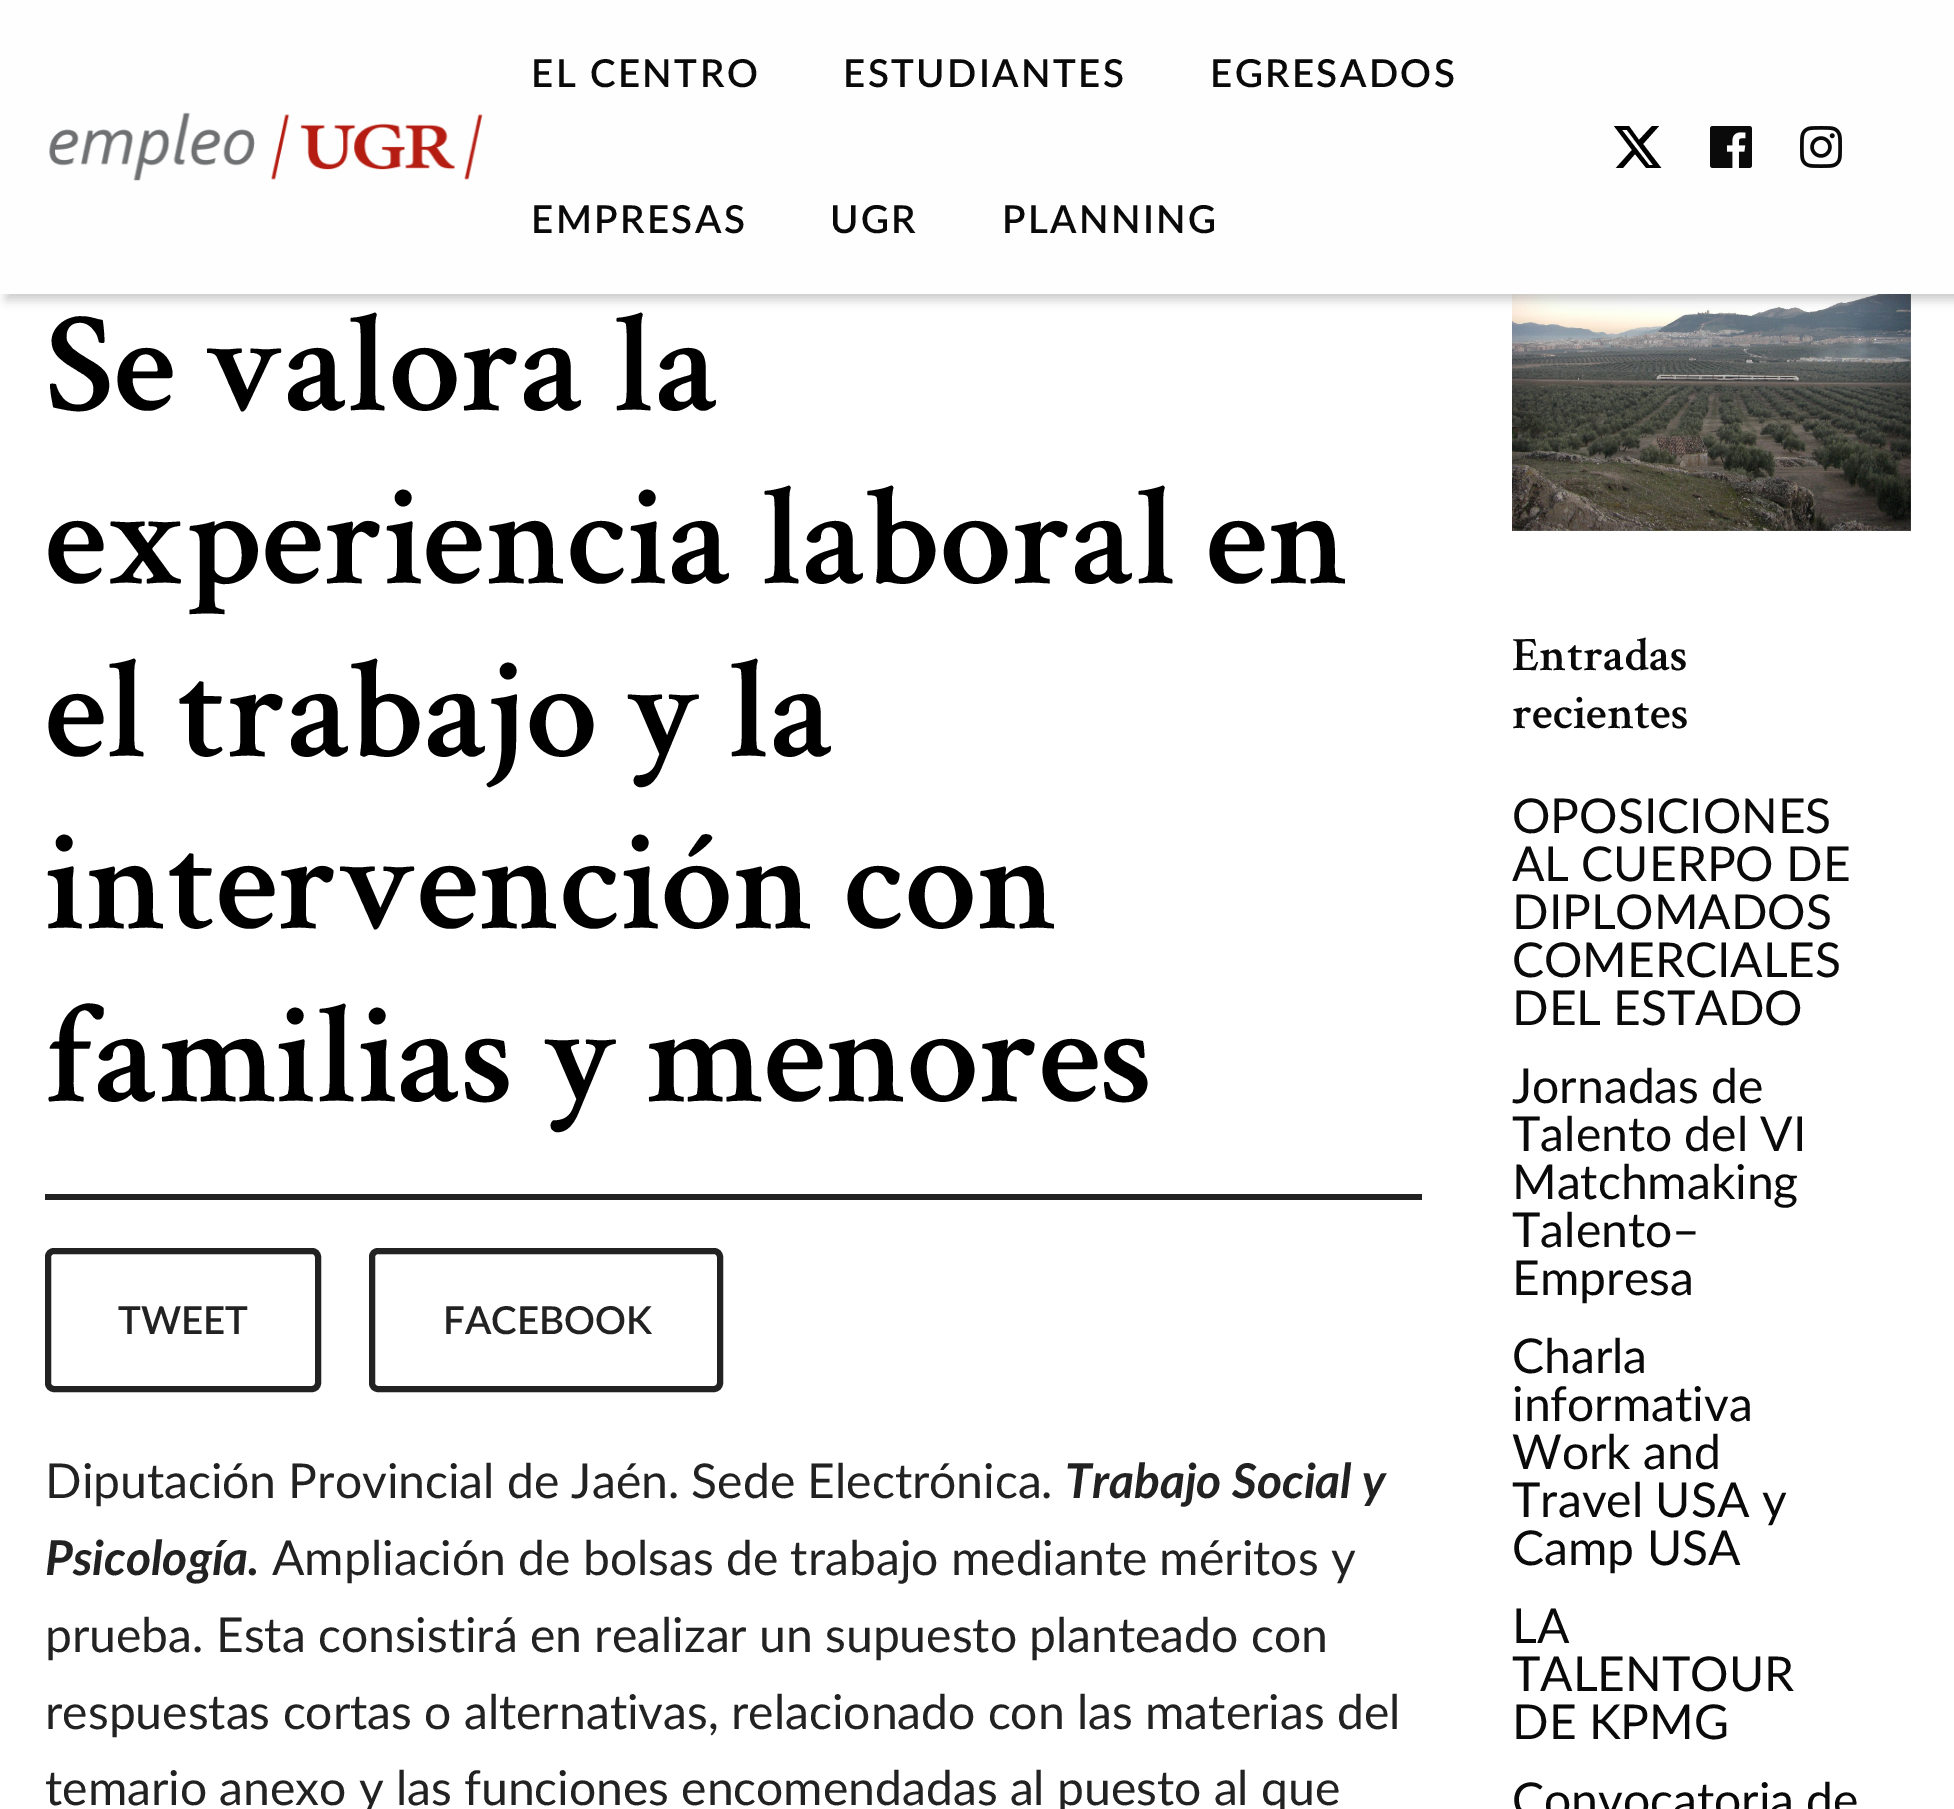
%!PS
<< /PageSize [1954 1809] /PageUsesTransparency true >> setpagedevice
/rgb { dup -16 bitshift 255 div exch dup -8 bitshift 255 and 255 div exch 255 and 255 div setrgbcolor } def
/font { [ exch dup neg 0 0 3 -1 roll 0 0 ] selectfont } def
/text { moveto show } def
/alpha { dup .setfillconstantalpha .setstrokeconstantalpha } def
/roundrect { 5 dict begin { /r /h /w /y /x } { exch def } forall
  x r add y moveto x w add y 2 copy h add r arct x w add y h add x 1 index r arct
  x y h add x y r arct x y 2 copy exch w add exch r arct closepath end } def
/shadow { 12 dict begin { /a /b /q /h /w /y /x } { exch def } forall gsave /was 0 def
  9 -2 -9 { dup b mul 4 div /e exch def 1 sub .425 mul 2.718 exch exp 1 add a .99 .min exch div /now exch def
    1 1 now sub 1 was sub div sub alpha /was now def
    w h .min e 2 mul add 0 gt { x e sub y e sub w e 2 mul add h e 2 mul add
      q e add b .6 mul add w h .min 2 div e add .min 0 .max roundrect fill } if } for grestore end } def
/picture { 5 dict begin { /h /w /y /x /name } { exch def } forall
  gsave x y translate w h scale
  w h 8 [w 0 0 h 0 0] name (r) file false 3 colorimage grestore end } def
0 .pushpdf14devicefilter
0 1809 translate 1 -1 scale
4 setmiterlimit
/s1 { /CrimsonText-SemiBold 144 font 16#000000 rgb } def
/s2 { /Lato-SemiBold 38.5 font 16#222222 rgb } def
/s3 { /Lato-Regular 48 font 16#222222 rgb } def
/s4 { /Lato-BoldItalic 48 font 16#222222 rgb } def
/s5 { /CrimsonText-SemiBold 48 font 16#0A0A0A rgb } def
/s6 { /Lato-Regular 48 font 16#0A0A0A rgb } def
16#FFFFFF rgb
0 0 1954 1809 rectfill
(pic4.raw) 1512 294 399 237 picture
16#000000 rgb
6 6 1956 294 0 5 0.2 shadow
16#FEFEFE rgb
0 0 1954 294 rectfill
(pic1.raw) 49 112 434 69 picture
/Lato-SemiBold 38.5 font
16#0A0A0A rgb
531 87 moveto 2.4 0 (EL CENTRO) ashow
843 87 moveto 2.4 0 (ESTUDIANTES) ashow
1210 87 moveto 2.4 0 (EGRESADOS) ashow
531 233 moveto 2.4 0 (EMPRESAS) ashow
830 233 moveto 2.4 0 (UGR) ashow
1002 233 moveto 2.4 0 (PLANNING) ashow
gsave
1614 126 48 42 rectclip
16#000000 rgb
1652 126 moveto 1659 126 lineto 1643 144 lineto 1662 169 lineto 1647 169 lineto 1635 154 lineto 1622 169 lineto 1615 169 lineto 1632 150 lineto 1614 126 lineto 1629 126 lineto 1639 140 lineto closepath 1649 165 moveto 1653 165 lineto 1627 130 lineto 1622 130 lineto closepath fill
grestore
(pic2.raw) 1710 126 42 42 picture
(pic3.raw) 1800 126 42 42 picture
s1
(Se valora la) 45 410 text
(experiencia laboral en) 45 583 text
(el trabajo y la) 45 756 text
(intervención con) 45 928 text
(familias y menores) 45 1101 text
16#222222 rgb
45 1194 1377 6 rectfill
6 setlinewidth
48 1251 270 138 6 roundrect stroke
s2
(TWEET) 118 1334 text
372 1251 348 138 6 roundrect stroke
(FACEBOOK) 443 1334 text
s3
(Diputación Provincial de Jaén. Sede Electrónica.) 45 1498 text
s4
(Trabajo Social y) 1065 1498 text
(Psicología.) 45 1575 text
s3
(Ampliación de bolsas de trabajo mediante méritos y) 272 1575 text
(prueba. Esta consistirá en realizar un supuesto planteado con) 45 1652 text
(respuestas cortas o alternativas, relacionado con las materias del) 45 1729 text
(temario anexo y las funciones encomendadas al puesto al que) 45 1805 text
s5
(Entradas) 1512 670 text
(recientes) 1512 728 text
s6
(OPOSICIONES) 1512 833 text
(AL CUERPO DE) 1512 881 text
(DIPLOMADOS) 1512 929 text
(COMERCIALES) 1512 977 text
(DEL ESTADO) 1512 1025 text
(Jornadas de) 1512 1103 text
(Talento del VI) 1512 1151 text
(Matchmaking) 1512 1199 text
(Talento–) 1512 1247 text
(Empresa) 1512 1295 text
(Charla) 1512 1373 text
(informativa) 1512 1421 text
(Work and) 1512 1469 text
(Travel USA y) 1512 1517 text
(Camp USA) 1512 1565 text
(LA) 1512 1643 text
(TALENTOUR) 1512 1691 text
(DE KPMG) 1512 1739 text
(Convocatoria de) 1512 1817 text
.poppdf14devicefilter showpage
